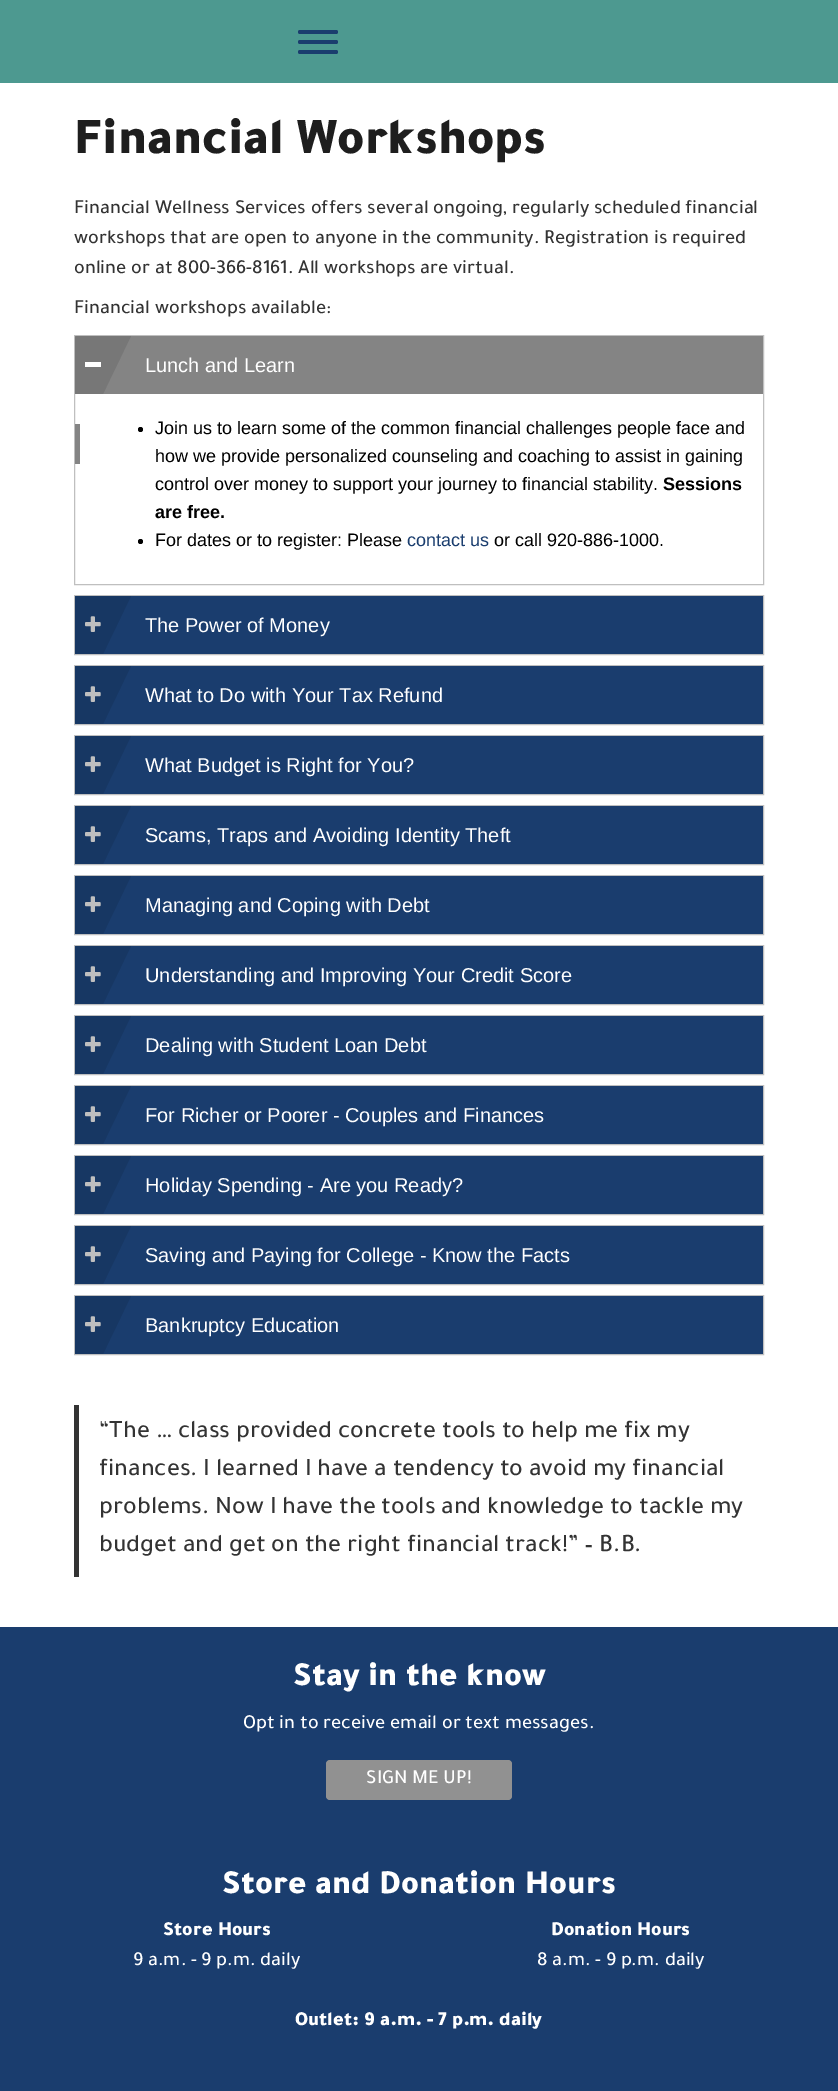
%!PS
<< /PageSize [838 2091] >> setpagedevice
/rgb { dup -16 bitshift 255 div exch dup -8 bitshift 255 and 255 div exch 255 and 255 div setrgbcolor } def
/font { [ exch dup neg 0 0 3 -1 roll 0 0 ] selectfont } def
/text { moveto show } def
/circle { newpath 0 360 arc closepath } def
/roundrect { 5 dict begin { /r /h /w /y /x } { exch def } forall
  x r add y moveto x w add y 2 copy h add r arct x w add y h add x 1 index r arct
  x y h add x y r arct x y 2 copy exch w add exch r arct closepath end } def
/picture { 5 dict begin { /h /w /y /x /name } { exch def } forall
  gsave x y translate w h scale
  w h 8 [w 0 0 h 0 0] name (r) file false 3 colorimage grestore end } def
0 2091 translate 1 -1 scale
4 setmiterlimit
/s1 { /Tajawal-Black 52 font 16#1E1E1E rgb } def
/s2 { /Tajawal-Medium 20 font 16#333333 rgb } def
/s3 { /LiberationSans-Regular 20 font 16#FFFFFF rgb } def
/s4 { /LiberationSans-Regular 18 font 16#000000 rgb } def
/s5 { /LiberationSans-Bold 18 font 16#000000 rgb } def
/s6 { /LiberationSans-Regular 18 font 16#1A3D6E rgb } def
/s7 { /Tajawal-Medium 25.3 font 16#333333 rgb } def
/s8 { /Tajawal-Black 34 font 16#FFFFFF rgb } def
/s9 { /Tajawal-Medium 20 font 16#FFFFFF rgb } def
/s10 { /Tajawal-Black 20 font 16#FFFFFF rgb } def
16#FFFFFF rgb
0 0 838 2091 rectfill
16#4D9990 rgb
0 0 838 83 rectfill
16#1A3D6E rgb
298 50 40 4 2 roundrect fill
298 30 40 4 2 roundrect fill
298 40 40 4 2 roundrect fill
s1
(Financial Workshops) 74 153 text
s2
(Financial Wellness Services offers several ongoing, regularly scheduled financial) 74 213 text
(workshops that are open to anyone in the community. Registration is required) 74 243 text
(online or at 800-366-8161. All workshops are virtual.) 74 273 text
(Financial workshops available:) 74 313 text
16#BFBFBF rgb
74.5 335.5 689 249 rectstroke
16#848484 rgb
75 336 688 58 rectfill
gsave
75 336 688 58 rectclip
16#777777 rgb
76 336 moveto 131 336 lineto 103 394 lineto 48 394 lineto closepath fill
grestore
s3
(Lunch and Learn) 145 372 text
85 362 16 5 rectfill
16#848484 rgb
75 424 5 40 rectfill
16#000000 rgb
140.5 429.5 2.5 circle fill
s4
(Join us to learn some of the common financial challenges people face and) 155 434 text
(how we provide personalized counseling and coaching to assist in gaining) 155 462 text
(control over money to support your journey to financial stability.) 155 490 text
s5
(Sessions) 663 490 text
(are free.) 155 518 text
140.5 541.5 2.5 circle fill
s4
(For dates or to register: Please) 155 546 text
s6
(contact us) 407 546 text
s4
(or call 920-886-1000.) 494 546 text
16#BFBFBF rgb
74.5 595.5 689 59 rectstroke
16#1A3D6E rgb
75 596 688 58 rectfill
gsave
75 596 688 58 rectclip
16#173763 rgb
76 596 moveto 131 596 lineto 103 654 lineto 48 654 lineto closepath fill
grestore
(pic1.raw) 85 616 16 16 picture
s3
(The Power of Money) 145 632 text
16#BFBFBF rgb
74.5 665.5 689 59 rectstroke
16#1A3D6E rgb
75 666 688 58 rectfill
gsave
75 666 688 58 rectclip
16#173763 rgb
76 666 moveto 131 666 lineto 103 724 lineto 48 724 lineto closepath fill
grestore
(pic1.raw) 85 686 16 16 picture
s3
(What to Do with Your Tax Refund) 145 702 text
16#BFBFBF rgb
74.5 735.5 689 59 rectstroke
16#1A3D6E rgb
75 736 688 58 rectfill
gsave
75 736 688 58 rectclip
16#173763 rgb
76 736 moveto 131 736 lineto 103 794 lineto 48 794 lineto closepath fill
grestore
(pic1.raw) 85 756 16 16 picture
s3
(What Budget is Right for You?) 145 772 text
16#BFBFBF rgb
74.5 805.5 689 59 rectstroke
16#1A3D6E rgb
75 806 688 58 rectfill
gsave
75 806 688 58 rectclip
16#173763 rgb
76 806 moveto 131 806 lineto 103 864 lineto 48 864 lineto closepath fill
grestore
(pic1.raw) 85 826 16 16 picture
s3
(Scams, Traps and Avoiding Identity Theft) 145 842 text
16#BFBFBF rgb
74.5 875.5 689 59 rectstroke
16#1A3D6E rgb
75 876 688 58 rectfill
gsave
75 876 688 58 rectclip
16#173763 rgb
76 876 moveto 131 876 lineto 103 934 lineto 48 934 lineto closepath fill
grestore
(pic1.raw) 85 896 16 16 picture
s3
(Managing and Coping with Debt) 145 912 text
16#BFBFBF rgb
74.5 945.5 689 59 rectstroke
16#1A3D6E rgb
75 946 688 58 rectfill
gsave
75 946 688 58 rectclip
16#173763 rgb
76 946 moveto 131 946 lineto 103 1004 lineto 48 1004 lineto closepath fill
grestore
(pic1.raw) 85 966 16 16 picture
s3
(Understanding and Improving Your Credit Score) 145 982 text
16#BFBFBF rgb
74.5 1015.5 689 59 rectstroke
16#1A3D6E rgb
75 1016 688 58 rectfill
gsave
75 1016 688 58 rectclip
16#173763 rgb
76 1016 moveto 131 1016 lineto 103 1074 lineto 48 1074 lineto closepath fill
grestore
(pic1.raw) 85 1036 16 16 picture
s3
(Dealing with Student Loan Debt) 145 1052 text
16#BFBFBF rgb
74.5 1085.5 689 59 rectstroke
16#1A3D6E rgb
75 1086 688 58 rectfill
gsave
75 1086 688 58 rectclip
16#173763 rgb
76 1086 moveto 131 1086 lineto 103 1144 lineto 48 1144 lineto closepath fill
grestore
(pic1.raw) 85 1106 16 16 picture
s3
(For Richer or Poorer - Couples and Finances) 145 1122 text
16#BFBFBF rgb
74.5 1155.5 689 59 rectstroke
16#1A3D6E rgb
75 1156 688 58 rectfill
gsave
75 1156 688 58 rectclip
16#173763 rgb
76 1156 moveto 131 1156 lineto 103 1214 lineto 48 1214 lineto closepath fill
grestore
(pic1.raw) 85 1176 16 16 picture
s3
(Holiday Spending - Are you Ready?) 145 1192 text
16#BFBFBF rgb
74.5 1225.5 689 59 rectstroke
16#1A3D6E rgb
75 1226 688 58 rectfill
gsave
75 1226 688 58 rectclip
16#173763 rgb
76 1226 moveto 131 1226 lineto 103 1284 lineto 48 1284 lineto closepath fill
grestore
(pic1.raw) 85 1246 16 16 picture
s3
(Saving and Paying for College - Know the Facts) 145 1262 text
16#BFBFBF rgb
74.5 1295.5 689 59 rectstroke
16#1A3D6E rgb
75 1296 688 58 rectfill
gsave
75 1296 688 58 rectclip
16#173763 rgb
76 1296 moveto 131 1296 lineto 103 1354 lineto 48 1354 lineto closepath fill
grestore
(pic1.raw) 85 1316 16 16 picture
s3
(Bankruptcy Education) 145 1332 text
16#333333 rgb
74 1405 5 172 rectfill
s7
(“The … class provided concrete tools to help me fix my) 99 1437 text
(finances. I learned I have a tendency to avoid my financial) 99 1475 text
(problems. Now I have the tools and knowledge to tackle my) 99 1513 text
(budget and get on the right financial track!” – B.B.) 99 1551 text
16#1A3D6E rgb
0 1627 838 464 rectfill
s8
(Stay in the know) 293 1685 text
s9
(Opt in to receive email or text messages.) 243 1728 text
16#919191 rgb
326 1760 186 40 4 roundrect fill
s9
(SIGN ME UP!) 366 1783 text
s8
(Store and Donation Hours) 222 1893 text
s10
(Store Hours) 163 1935 text
(Donation Hours) 551 1935 text
s9
(9 a.m. - 9 p.m. daily) 133 1965 text
(8 a.m. - 9 p.m. daily) 537 1965 text
s10
(Outlet: 9 a.m. - 7 p.m. daily) 295 2025 text
showpage
